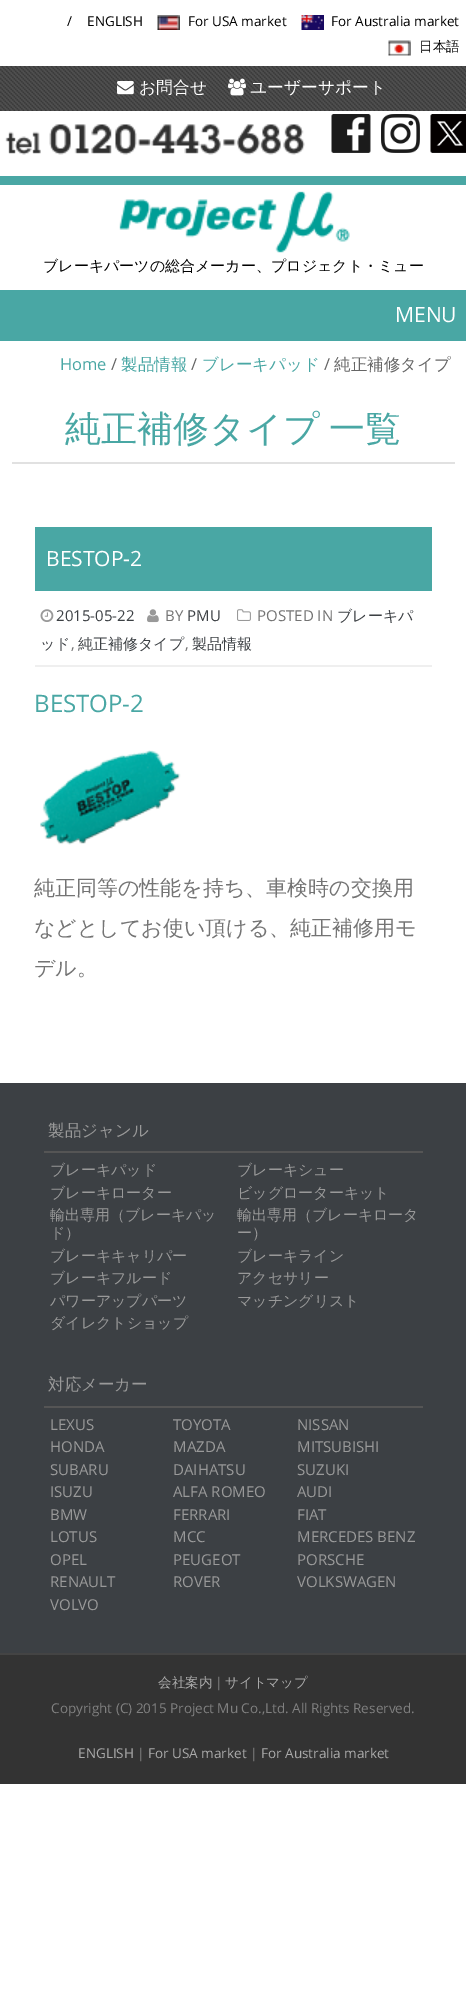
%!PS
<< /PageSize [466 2009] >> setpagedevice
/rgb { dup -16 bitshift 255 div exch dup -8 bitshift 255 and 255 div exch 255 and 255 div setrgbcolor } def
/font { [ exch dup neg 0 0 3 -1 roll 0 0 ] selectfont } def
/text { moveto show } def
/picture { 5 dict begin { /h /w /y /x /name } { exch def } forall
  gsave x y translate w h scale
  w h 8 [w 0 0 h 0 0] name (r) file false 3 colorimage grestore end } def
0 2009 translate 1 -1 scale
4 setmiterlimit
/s1 { /OpenSans-Regular 13.5 font 16#000000 rgb } def
/s2 { /WenQuanYiZenHei-Medium 13.5 font 16#000000 rgb } def
/s3 { /WenQuanYiZenHei-Medium 16.75 font 16#FFFFFF rgb } def
/s4 { /WenQuanYiZenHei-Medium 15 font 16#000000 rgb } def
/s5 { /OpenSans-Regular 21 font 16#FFFFFF rgb } def
/s6 { /OpenSans-Regular 16.5 font 16#49A7A4 rgb } def
/s7 { /OpenSans-Regular 16.5 font 16#666666 rgb } def
/s8 { /WenQuanYiZenHei-Medium 16.5 font 16#49A7A4 rgb } def
/s9 { /WenQuanYiZenHei-Medium 16.5 font 16#666666 rgb } def
/s10 { /WenQuanYiZenHei-Medium 36 font 16#49A7A4 rgb } def
/s11 { /OpenSans-Regular 15 font 16#747474 rgb } def
/s12 { /WenQuanYiZenHei-Medium 15 font 16#3C4044 rgb } def
/s13 { /OpenSans-Regular 15 font 16#3C4044 rgb } def
/s14 { /OpenSans-Regular 24 font 16#49A7A4 rgb } def
/s15 { /WenQuanYiZenHei-Medium 21 font 16#747474 rgb } def
/s16 { /WenQuanYiZenHei-Medium 16.5 font 16#999999 rgb } def
/s17 { /WenQuanYiZenHei-Medium 15 font 16#999999 rgb } def
/s18 { /OpenSans-Regular 15 font 16#999999 rgb } def
/s19 { /WenQuanYiZenHei-Medium 13.5 font 16#AAAAAA rgb } def
/s20 { /WenQuanYiZenHei-Medium 13.5 font 16#808080 rgb } def
/s21 { /OpenSans-Regular 13.5 font 16#808080 rgb } def
/s22 { /OpenSans-Regular 13.5 font 16#AAAAAA rgb } def
16#FFFFFF rgb
0 0 466 2009 rectfill
s1
(/) 67 26 text
(ENGLISH) 87 26 text
(pic1.raw) 157 15 23 15 picture
(For USA market) 188 26 text
(pic2.raw) 301 15 23 15 picture
(For Australia market) 331 26 text
(pic3.raw) 388 40 23 16 picture
s2
(日本語) 419 51 text
(pic4.raw) 0 66 466 45 picture
(pic5.raw) 117 81 17 14 picture
s3
(お問合せ) 139 93 text
(pic6.raw) 228 78 18 18 picture
(ユーザーサポート) 250 93 text
(pic7.raw) 5 124 300 31 picture
(pic8.raw) 331 114 40 39 picture
(pic9.raw) 381 114 39 39 picture
(pic10.raw) 430 114 36 39 picture
16#49A7A4 rgb
0 176 466 9 rectfill
(pic11.raw) 119 191 231 62 picture
s4
(ブレーキパーツの総合メーカー、プロジェクト・ミュー) 43 271 text
16#49A7A4 rgb
0 290 466 51 rectfill
s5
(MENU) 395 322 text
16#E1E1E1 rgb
12 462 443 2 rectfill
s6
(Home) 60 370 text
s7
(/) 111 370 text
s8
(製品情報) 121 370 text
s7
(/) 191 370 text
s8
(ブレーキパッド) 202 370 text
s7
(/) 324 370 text
s9
(純正補修タイプ) 334 370 text
s10
(純正補修タイプ) 65 441 text
(一覧) 329 441 text
35 527 397 64 rectfill
s5
(BESTOP-2) 46 566 text
16#EFEFEF rgb
35 665 397 2 rectfill
(pic12.raw) 237 609 14 12 picture
s11
(POSTED IN) 257 621 text
s12
(ブレーキパ) 337 621 text
(ッド) 40 649 text
s11
(,) 71 649 text
s12
(純正補修タイプ) 78 649 text
s11
(,) 185 649 text
s12
(製品情報) 192 649 text
(pic13.raw) 40 609 14 13 picture
s13
(2015-05-22) 56 621 text
(pic14.raw) 147 609 12 14 picture
s11
(BY) 165 621 text
s13
(PMU) 187 621 text
s14
(BESTOP-2) 34 712 text
(pic15.raw) 40 750 141 95 picture
s15
(純正同等の性能を持ち、車検時の交換用) 34 895 text
(などとしてお使い頂ける、純正補修用モ) 34 935 text
(デル。) 34 975 text
16#3C4044 rgb
0 1083 466 570 rectfill
16#555555 rgb
44 1151 379 2 rectfill
s16
(製品ジャンル) 48 1136 text
s17
(ブレーキパッド) 50 1175 text
(ブレーキシュー) 237 1175 text
(ブレーキローター) 50 1198 text
(ビッグローターキット) 237 1198 text
(輸出専用（ブレーキパッ) 50 1220 text
(ド）) 50 1238 text
(輸出専用（ブレーキロータ) 237 1220 text
(ー）) 237 1238 text
(ブレーキキャリパー) 50 1261 text
(ブレーキライン) 237 1261 text
(ブレーキフルード) 50 1283 text
(アクセサリー) 237 1283 text
(パワーアップパーツ) 50 1306 text
(マッチングリスト) 237 1306 text
(ダイレクトショップ) 50 1328 text
16#555555 rgb
44 1406 379 2 rectfill
s16
(対応メーカー) 48 1390 text
s18
(LEXUS) 50 1430 text
(TOYOTA) 173 1430 text
(NISSAN) 297 1430 text
(HONDA) 50 1452 text
(MAZDA) 173 1452 text
(MITSUBISHI) 297 1452 text
(SUBARU) 50 1475 text
(DAIHATSU) 173 1475 text
(SUZUKI) 297 1475 text
(ISUZU) 50 1497 text
(ALFA ROMEO) 173 1497 text
(AUDI) 297 1497 text
(BMW) 50 1520 text
(FERRARI) 173 1520 text
(FIAT) 297 1520 text
(LOTUS) 50 1542 text
(MCC) 173 1542 text
(MERCEDES BENZ) 297 1542 text
(OPEL) 50 1565 text
(PEUGEOT) 173 1565 text
(PORSCHE) 297 1565 text
(RENAULT) 50 1587 text
(ROVER) 173 1587 text
(VOLKSWAGEN) 297 1587 text
(VOLVO) 50 1610 text
16#333333 rgb
0 1655 466 129 rectfill
16#444444 rgb
0 1653 466 2 rectfill
s19
(会社案内) 158 1687 text
s20
(｜) 212 1687 text
s19
(サイトマップ) 225 1687 text
s21
(Copyright \(C\) 2015 Project Mu Co.,Ltd. All Rights Reserved.) 51 1713 text
s22
(ENGLISH) 78 1758 text
s21
(|) 137 1758 text
s22
(For USA market) 148 1758 text
s21
(|) 250 1758 text
s22
(For Australia market) 261 1758 text
showpage
